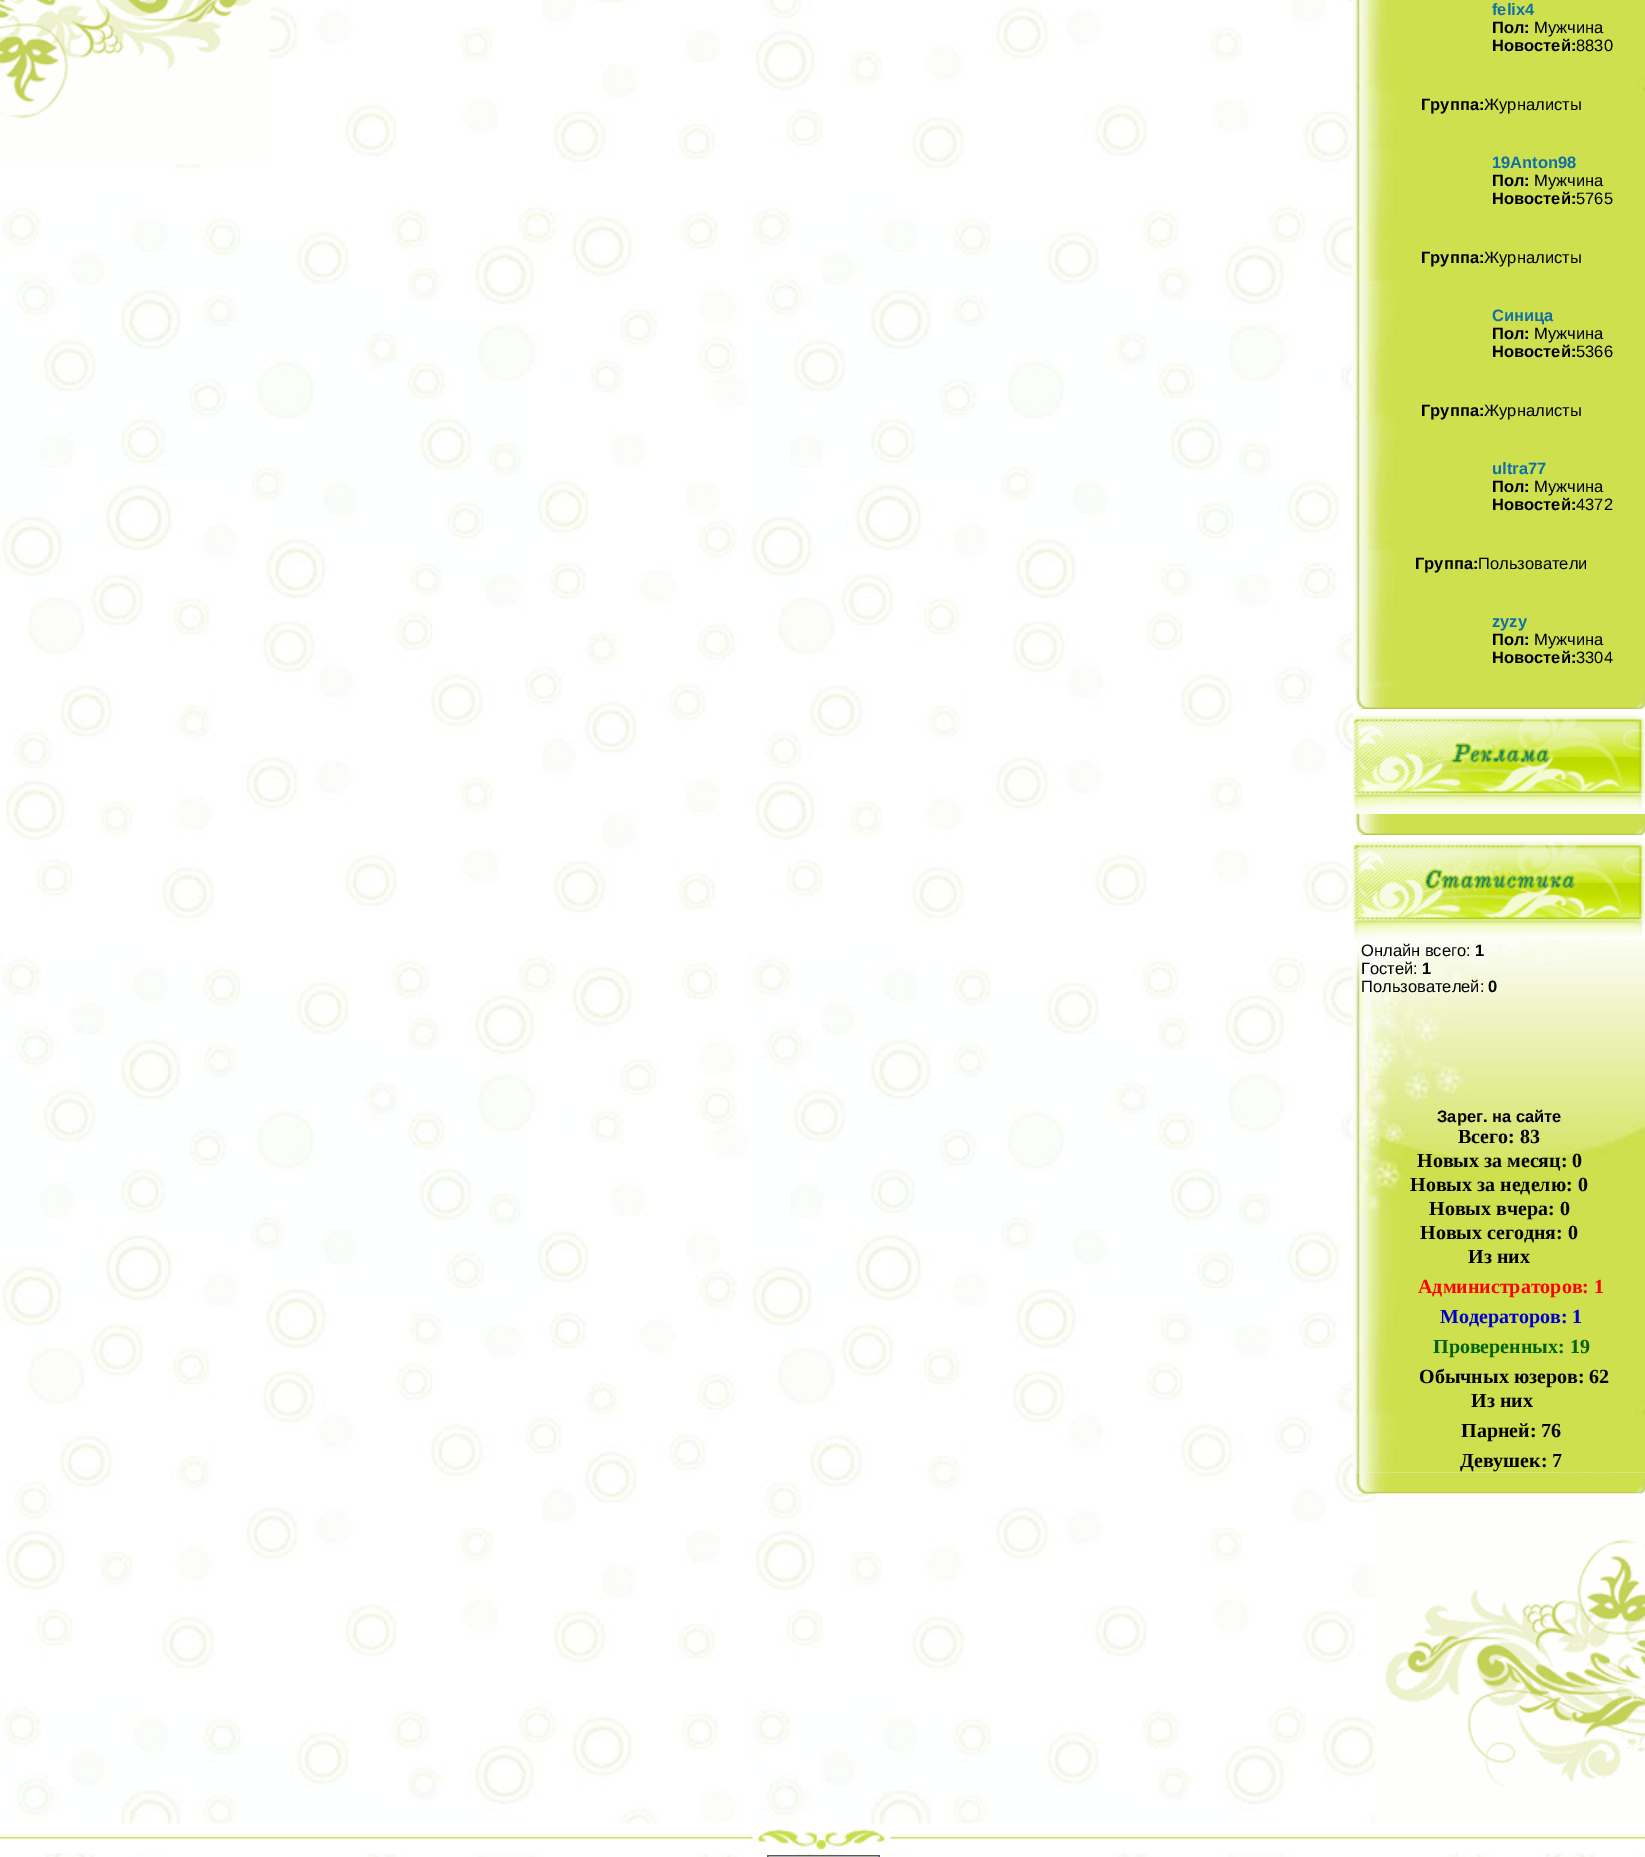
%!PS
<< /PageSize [1645 1857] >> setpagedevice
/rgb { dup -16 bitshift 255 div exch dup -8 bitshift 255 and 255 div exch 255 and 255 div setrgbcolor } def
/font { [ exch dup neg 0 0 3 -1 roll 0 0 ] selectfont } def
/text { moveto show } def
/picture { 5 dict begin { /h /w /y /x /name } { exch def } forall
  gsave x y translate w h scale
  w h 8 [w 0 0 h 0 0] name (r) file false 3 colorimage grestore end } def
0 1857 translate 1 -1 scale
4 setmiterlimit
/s1 { /LiberationSans-Bold 16.5 font 16#106FA5 rgb } def
/s2 { /LiberationSans-Bold 16.5 font 16#000000 rgb } def
/s3 { /LiberationSans-Regular 16.5 font 16#000000 rgb } def
/s4 { /LiberationSerif-Bold 20 font 16#000000 rgb } def
/s5 { /LiberationSerif-Bold 20 font 16#FF0000 rgb } def
/s6 { /LiberationSerif-Bold 20 font 16#0000CD rgb } def
/s7 { /LiberationSerif-Bold 20 font 16#006400 rgb } def
16#FFFFFF rgb
0 0 1645 1857 rectfill
(pic1.raw) 0 0 1645 1857 picture
(pic2.raw) 0 0 270 165 picture
(pic3.raw) 1353 0 292 688 picture
s1
(felix4) 1492 15 text
s2
(Пол:) 1492 33 text
s3
(Мужчина) 1534 33 text
s2
(Новостей:) 1492 51 text
s3
(8830) 1576 51 text
s2
(Группа:) 1421 110 text
s3
(Журналисты) 1484 110 text
s1
(19Anton98) 1492 168 text
s2
(Пол:) 1492 186 text
s3
(Мужчина) 1534 186 text
s2
(Новостей:) 1492 204 text
s3
(5765) 1576 204 text
s2
(Группа:) 1421 263 text
s3
(Журналисты) 1484 263 text
s1
(Синица) 1492 321 text
s2
(Пол:) 1492 339 text
s3
(Мужчина) 1534 339 text
s2
(Новостей:) 1492 357 text
s3
(5366) 1576 357 text
s2
(Группа:) 1421 416 text
s3
(Журналисты) 1484 416 text
s1
(ultra77) 1492 474 text
s2
(Пол:) 1492 492 text
s3
(Мужчина) 1534 492 text
s2
(Новостей:) 1492 510 text
s3
(4372) 1576 510 text
s2
(Группа:) 1415 569 text
s3
(Пользователи) 1478 569 text
s1
(zyzy) 1492 627 text
s2
(Пол:) 1492 645 text
s3
(Мужчина) 1534 645 text
s2
(Новостей:) 1492 663 text
s3
(3304) 1576 663 text
(pic4.raw) 1353 688 292 21 picture
(pic5.raw) 1353 709 292 105 picture
(pic4.raw) 1353 814 292 21 picture
(pic6.raw) 1353 835 292 105 picture
(pic7.raw) 1353 940 292 533 picture
(Онлайн всего:) 1361 956 text
s2
(1) 1475 956 text
s3
(Гостей:) 1361 974 text
s2
(1) 1422 974 text
s3
(Пользователей:) 1361 992 text
s2
(0) 1488 992 text
(Зарег. на сайте) 1437 1122 text
s4
(Всего: 83) 1458 1143 text
(Новых за месяц: 0) 1417 1167 text
(Новых за неделю: 0) 1410 1191 text
(Новых вчера: 0) 1429 1215 text
(Новых сегодня: 0) 1420 1239 text
(Из них) 1468 1263 text
s5
(Администраторов: 1) 1418 1293 text
s6
(Модераторов: 1) 1440 1323 text
s7
(Проверенных: 19) 1433 1353 text
s4
(Обычных юзеров: 62) 1419 1383 text
(Из них) 1471 1407 text
(Парней: 76) 1461 1437 text
(Девушек: 7) 1460 1467 text
(pic8.raw) 1353 1472 292 22 picture
(pic10.raw) 0 1823 1645 31 picture
(pic9.raw) 1375 1493 270 331 picture
(pic11.raw) 767 1855 113 2 picture
showpage
